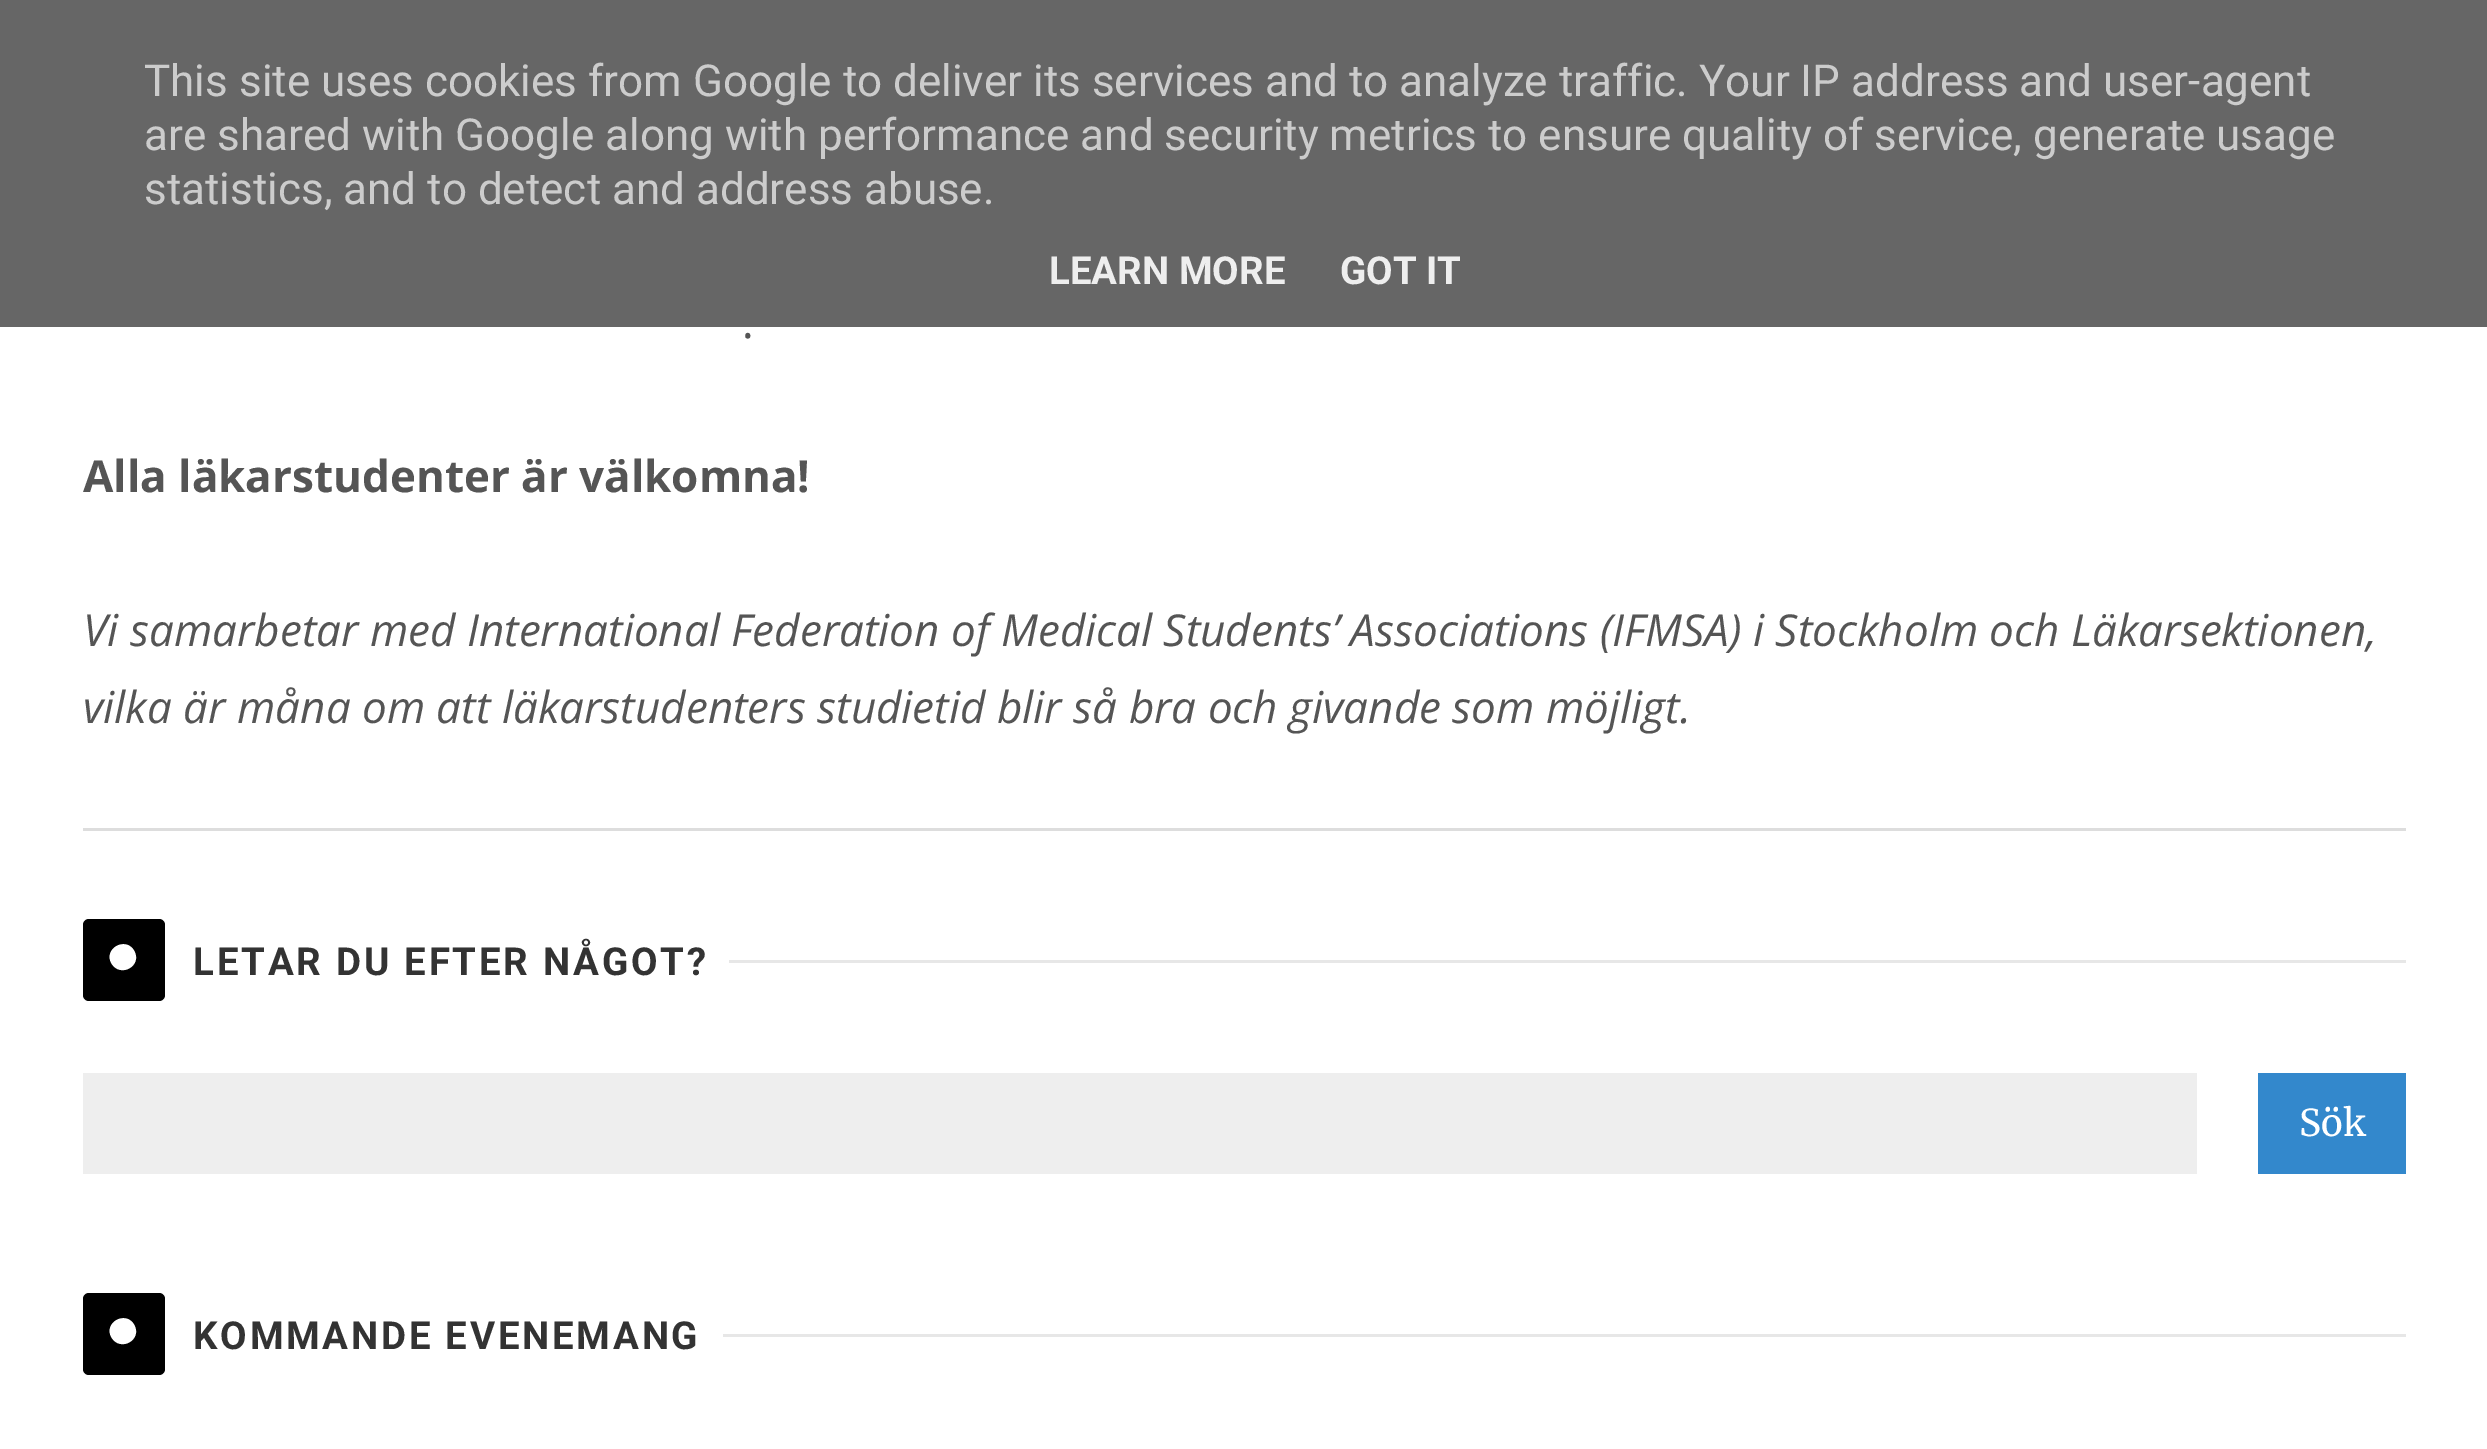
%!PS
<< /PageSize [2487 1449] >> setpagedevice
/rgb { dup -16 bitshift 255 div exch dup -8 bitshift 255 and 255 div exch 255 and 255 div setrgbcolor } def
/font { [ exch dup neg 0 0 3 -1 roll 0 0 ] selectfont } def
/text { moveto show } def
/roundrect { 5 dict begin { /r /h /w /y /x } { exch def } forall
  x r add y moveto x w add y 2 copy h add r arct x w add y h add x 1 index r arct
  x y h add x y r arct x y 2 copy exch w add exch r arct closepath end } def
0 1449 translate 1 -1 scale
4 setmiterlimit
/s1 { /Roboto-Regular 44 font 16#CCCCCC rgb } def
/s2 { /Roboto-Bold 38.5 font 16#EEEEEE rgb } def
/s3 { /OpenSans-Regular 44 font 16#555555 rgb } def
/s4 { /OpenSans-Bold 44 font 16#555555 rgb } def
/s5 { /OpenSans-Italic 44 font 16#555555 rgb } def
/s6 { /Merriweather-Regular 37 font 16#FFFFFF rgb } def
16#FFFFFF rgb
0 0 2487 1449 rectfill
16#666666 rgb
0 0 2487 327 rectfill
s1
(This site uses cookies from Google to deliver its services and to analyze traffic. Your IP address and user-agent) 144 96 text
(are shared with Google along with performance and security metrics to ensure quality of service, generate usage) 144 150 text
(statistics, and to detect and address abuse.) 144 204 text
s2
(LEARN MORE) 1049 284 text
(GOT IT) 1340 284 text
s3
(.) 742 338 text
s4
(Alla läkarstudenter är välkomna!) 83 492 text
s5
(Vi samarbetar med International Federation of Medical Students’ Associations \(IFMSA\) i Stockholm och Läkarsektionen,) 83 646 text
(vilka är måna om att läkarstudenters studietid blir så bra och givande som möjligt.) 83 723 text
16#DDDDDD rgb
83 828 2323 3 rectfill
16#000000 rgb
83 919 82 82 6 roundrect fill
16#FFFFFF rgb
134 950.5 moveto 143 965.5 120.5 978.5 111.5 963.5 curveto 103 949 125.5 936 134 950.5 curveto closepath fill
/Roboto-Bold 38.5 font
16#333333 rgb
193 975 moveto 2.75 0 (LETAR DU EFTER NÅGOT?) ashow
16#E7E7E7 rgb
729 960 1677 3 rectfill
16#EEEEEE rgb
83 1073 2114 101 rectfill
16#3388CC rgb
2258 1073 148 101 rectfill
s6
(Sök) 2299 1136 text
16#000000 rgb
83 1293 82 82 6 roundrect fill
16#FFFFFF rgb
134 1324.5 moveto 143 1339.5 120.5 1352.5 111.5 1337.5 curveto 103 1323 125.5 1310 134 1324.5 curveto closepath fill
/Roboto-Bold 38.5 font
16#333333 rgb
193 1349 moveto 2.75 0 (KOMMANDE EVENEMANG) ashow
16#E7E7E7 rgb
723 1334 1683 3 rectfill
showpage
